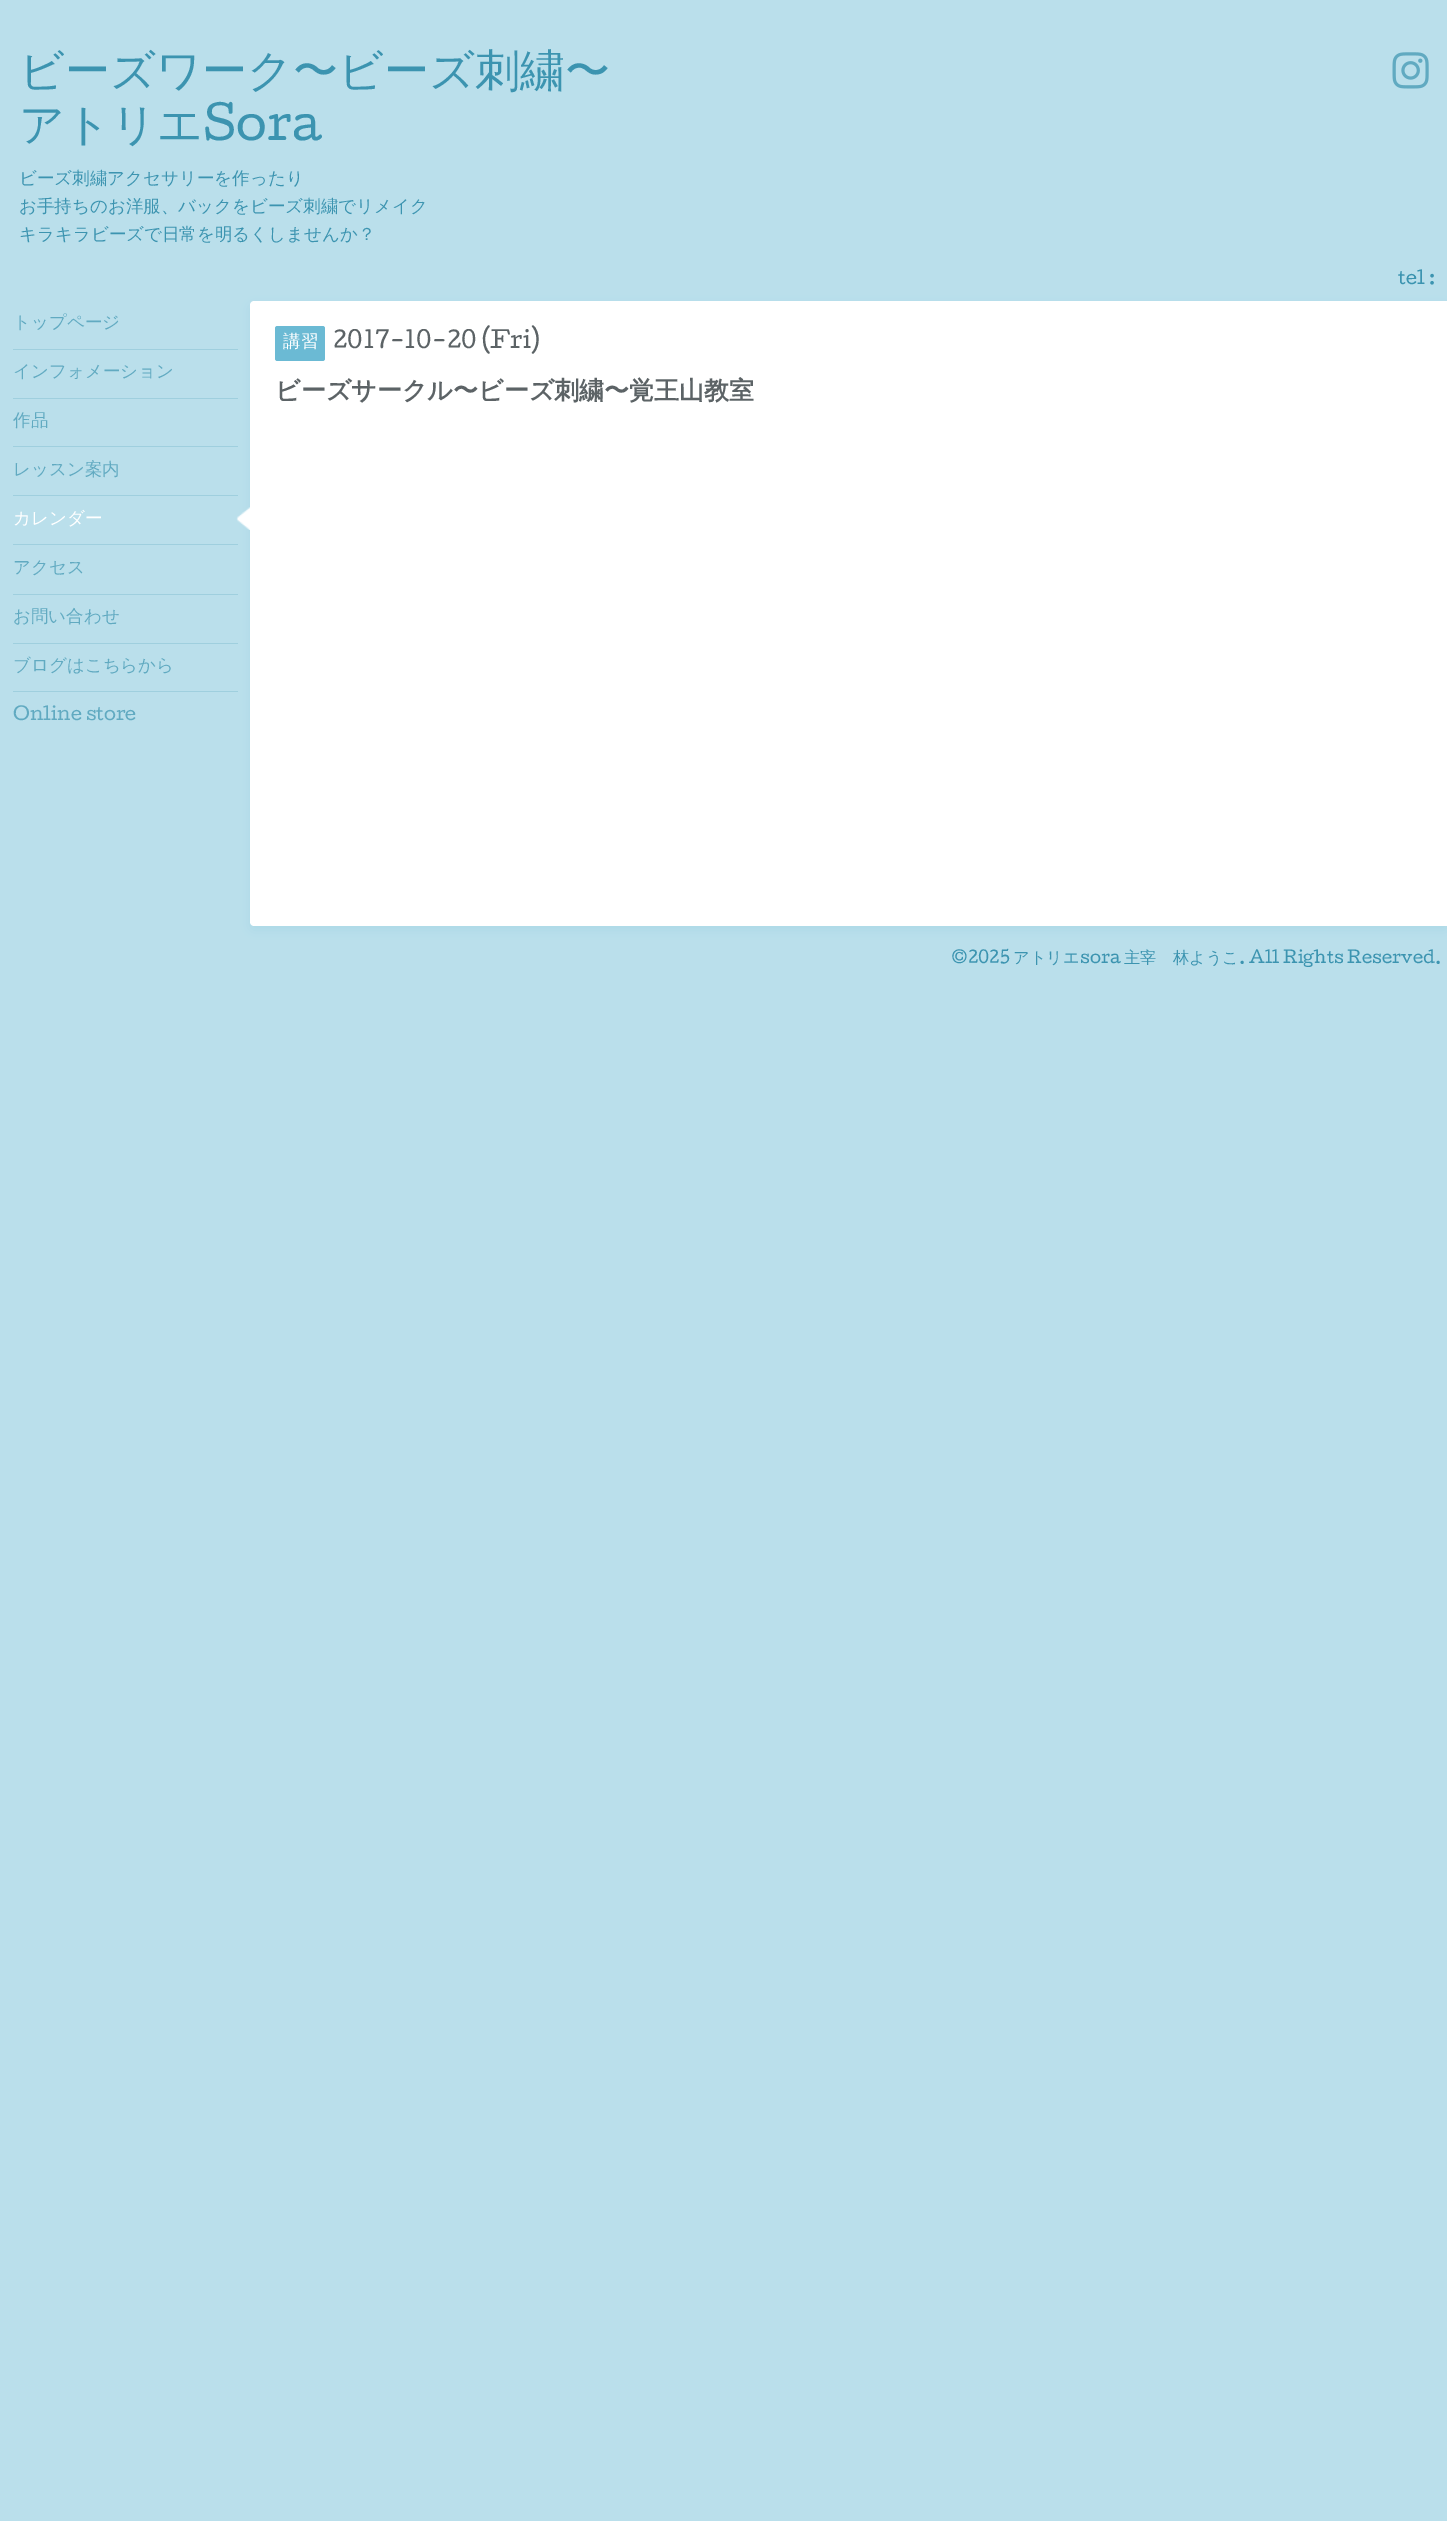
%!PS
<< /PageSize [1447 2521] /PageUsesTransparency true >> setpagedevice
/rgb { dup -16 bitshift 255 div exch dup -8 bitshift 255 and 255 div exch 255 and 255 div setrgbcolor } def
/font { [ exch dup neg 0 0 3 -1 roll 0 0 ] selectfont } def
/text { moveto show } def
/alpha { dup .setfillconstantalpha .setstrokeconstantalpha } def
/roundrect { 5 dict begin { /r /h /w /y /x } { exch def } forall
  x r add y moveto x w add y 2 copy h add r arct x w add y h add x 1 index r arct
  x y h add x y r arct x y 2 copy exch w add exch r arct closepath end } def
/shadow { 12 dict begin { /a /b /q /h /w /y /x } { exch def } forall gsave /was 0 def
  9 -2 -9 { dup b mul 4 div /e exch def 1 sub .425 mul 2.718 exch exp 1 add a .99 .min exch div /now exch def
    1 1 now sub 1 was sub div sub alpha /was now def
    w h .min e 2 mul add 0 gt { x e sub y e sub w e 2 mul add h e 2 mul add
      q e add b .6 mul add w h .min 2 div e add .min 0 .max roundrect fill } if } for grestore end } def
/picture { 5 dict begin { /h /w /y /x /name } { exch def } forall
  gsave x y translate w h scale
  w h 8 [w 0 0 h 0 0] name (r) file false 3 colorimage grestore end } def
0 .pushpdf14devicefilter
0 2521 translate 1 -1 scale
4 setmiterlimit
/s1 { /WenQuanYiZenHei-Medium 45 font 16#3C94B0 rgb } def
/s2 { /Cutive-Regular 45 font 16#3C94B0 rgb } def
/s3 { /WenQuanYiZenHei-Medium 17.5 font 16#3C94B0 rgb } def
/s4 { /Cutive-Regular 17.5 font 16#3C94B0 rgb } def
/s5 { /WenQuanYiZenHei-Medium 17.5 font 16#61AAC1 rgb } def
/s6 { /WenQuanYiZenHei-Medium 17.5 font 16#FFFFFF rgb } def
/s7 { /Cutive-Regular 17.5 font 16#61AAC1 rgb } def
/s8 { /Cutive-Regular 22.5 font 16#5C6366 rgb } def
/s9 { /WenQuanYiZenHei-Bold 25 font 16#5C6366 rgb } def
/s10 { /Cutive-Regular 16.25 font 16#3C94B0 rgb } def
/s11 { /WenQuanYiZenHei-Medium 16.25 font 16#3C94B0 rgb } def
16#BADFEB rgb
0 0 1447 2521 rectfill
s1
(ビーズワーク〜ビーズ刺繍〜) 19 86 text
(アトリエ) 19 140 text
s2
(Sora) 203 140 text
(pic1.raw) 1392 52 37 37 picture
s3
(ビーズ刺繍アクセサリーを作ったり) 19 184 text
(お手持ちのお洋服、バックをビーズ刺繍でリメイク) 19 212 text
(キラキラビーズで日常を明るくしませんか？) 19 240 text
s4
(tel :) 1398 284 text
s5
(トップページ) 13 328 text
16#9AD0E2 rgb
250 305 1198 625 4 6 0.4 shadow
16#9FCFDE rgb
13 349 225 1 rectfill
s5
(インフォメーション) 13 377 text
16#9FCFDE rgb
13 398 225 1 rectfill
s5
(作品) 13 426 text
16#9FCFDE rgb
13 446 225 1 rectfill
s5
(レッスン案内) 13 475 text
(pic2.raw) 236 507 14 23 picture
16#9FCFDE rgb
13 495 225 1 rectfill
s6
(カレンダー) 13 524 text
16#9FCFDE rgb
13 544 225 1 rectfill
s5
(アクセス) 13 573 text
16#9FCFDE rgb
13 594 225 1 rectfill
s5
(お問い合わせ) 13 622 text
16#9FCFDE rgb
13 643 225 1 rectfill
s5
(ブログはこちらから) 13 671 text
16#9FCFDE rgb
13 691 225 1 rectfill
s7
(Online store) 13 720 text
16#FFFFFF rgb
254 301 moveto 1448 301 lineto 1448 926 lineto 254 926 lineto 252 926 250 924 250 922 curveto 250 305 lineto 250 303 252 301 254 301 curveto closepath fill
16#6BBAD4 rgb
275 326 50 35 2.5 roundrect fill
s6
(講習) 283 347 text
s8
(2017-10-20 \(Fri\)) 333 348 text
s9
(ビーズサークル〜ビーズ刺繍〜覚王山教室) 275 399 text
s10
(©2025) 951 963 text
s11
(アトリエ) 1013 963 text
s10
(sora) 1080 963 text
s11
(主宰　林ようこ) 1124 963 text
s10
(. All Rights Reserved.) 1239 963 text
.poppdf14devicefilter showpage
